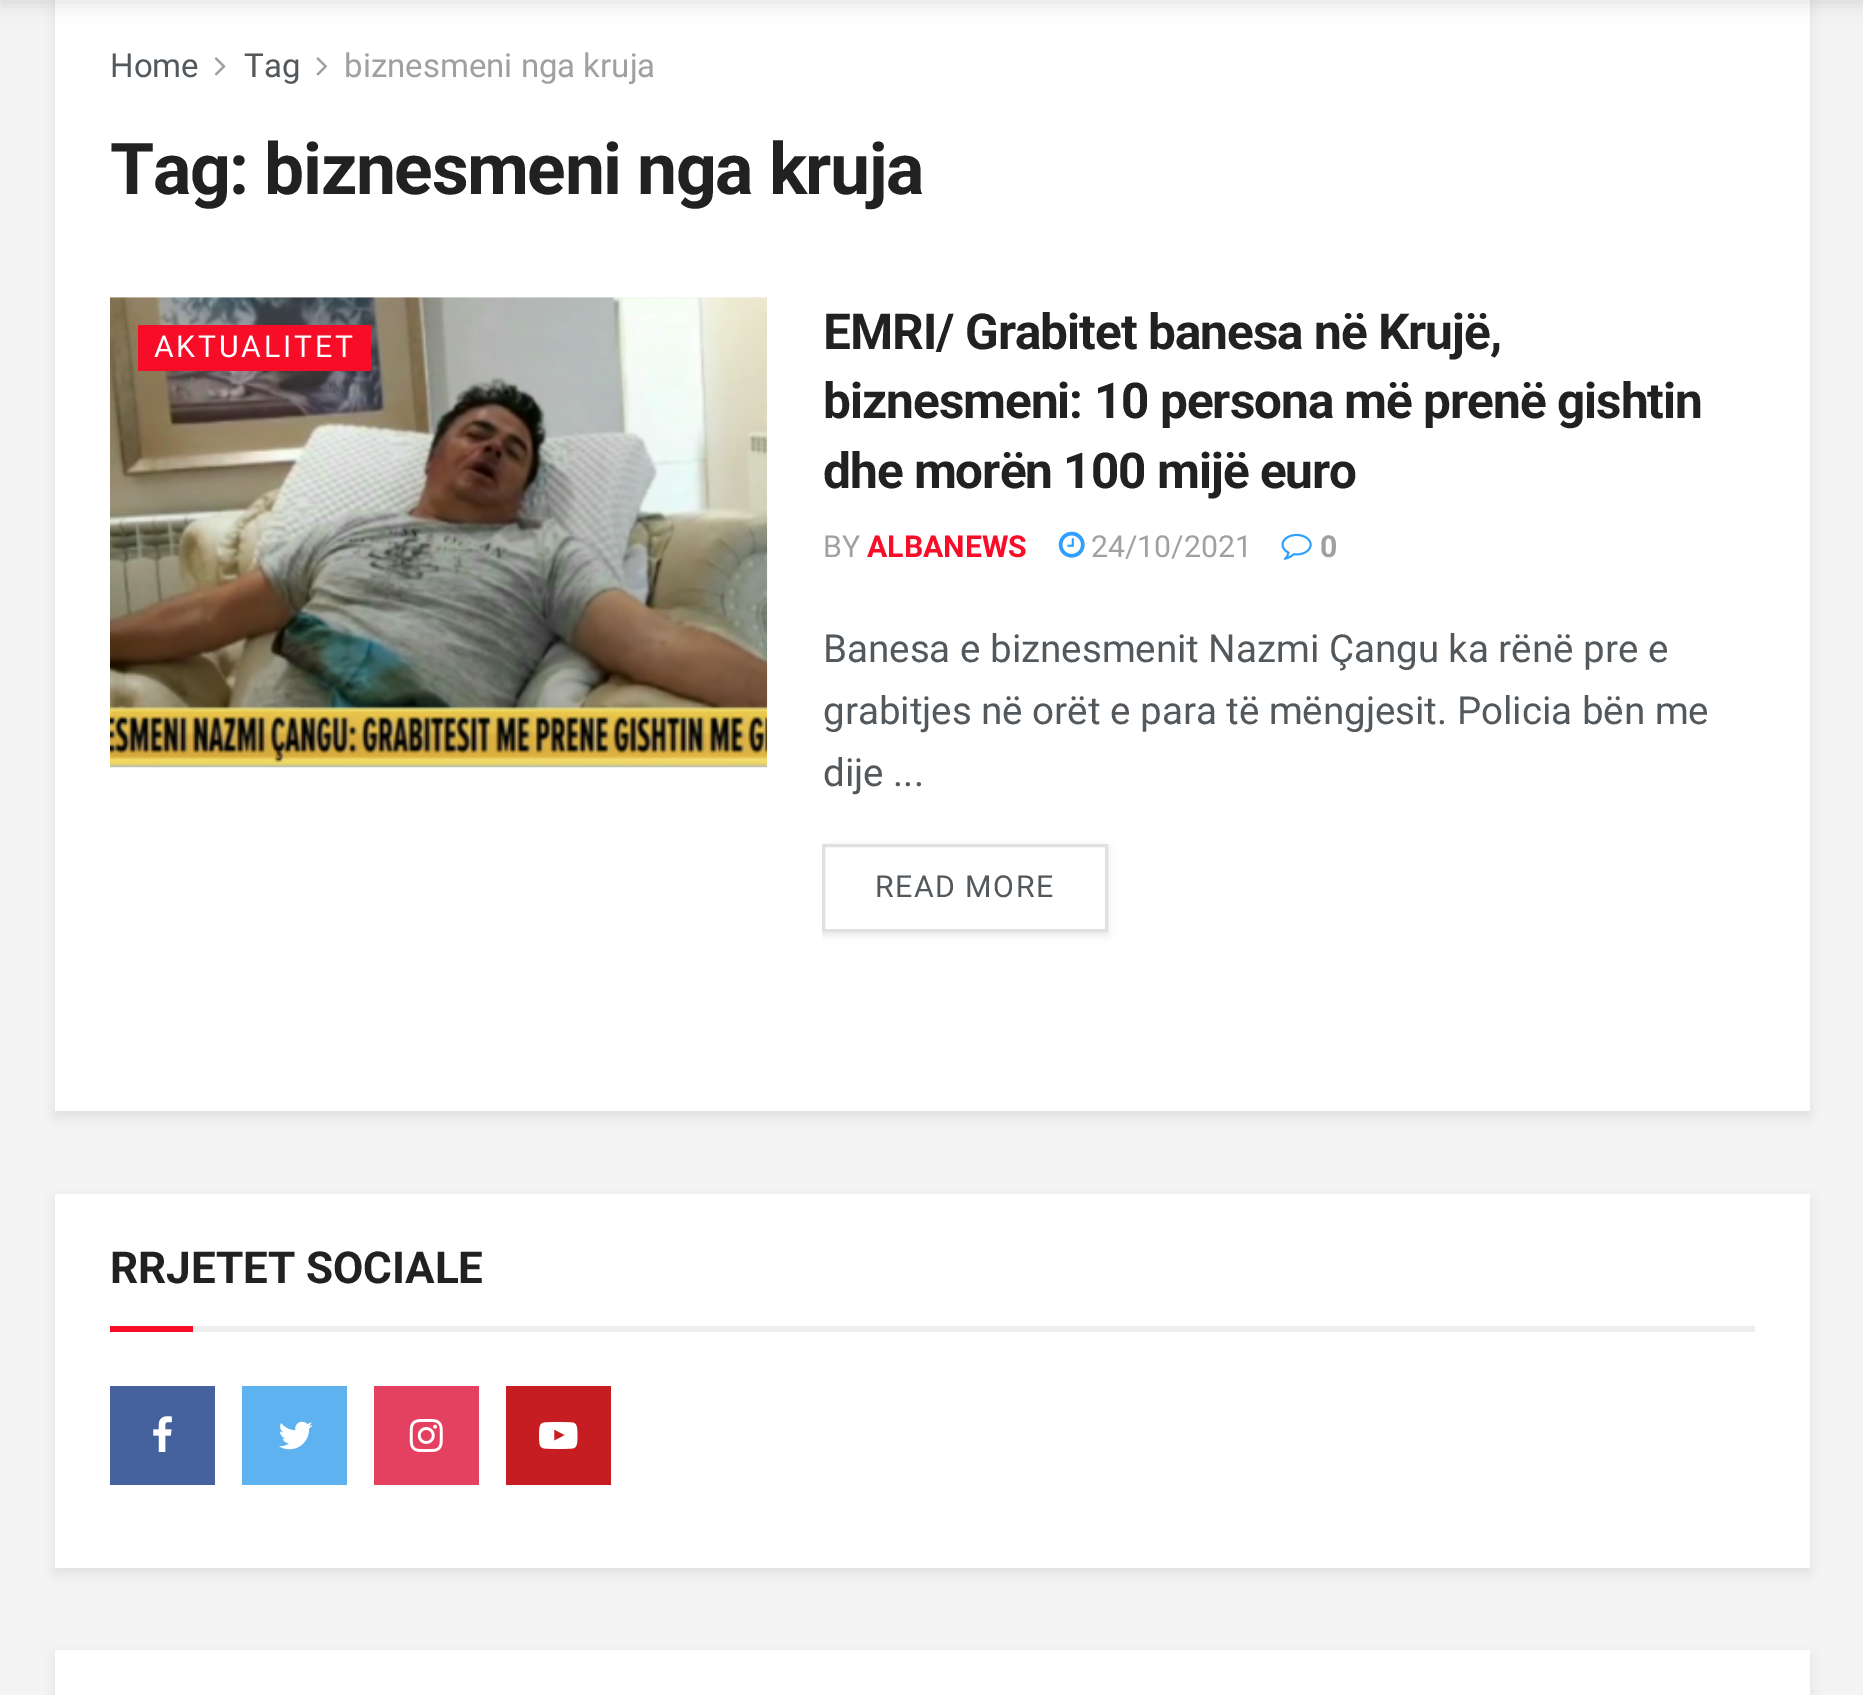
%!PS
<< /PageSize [1863 1695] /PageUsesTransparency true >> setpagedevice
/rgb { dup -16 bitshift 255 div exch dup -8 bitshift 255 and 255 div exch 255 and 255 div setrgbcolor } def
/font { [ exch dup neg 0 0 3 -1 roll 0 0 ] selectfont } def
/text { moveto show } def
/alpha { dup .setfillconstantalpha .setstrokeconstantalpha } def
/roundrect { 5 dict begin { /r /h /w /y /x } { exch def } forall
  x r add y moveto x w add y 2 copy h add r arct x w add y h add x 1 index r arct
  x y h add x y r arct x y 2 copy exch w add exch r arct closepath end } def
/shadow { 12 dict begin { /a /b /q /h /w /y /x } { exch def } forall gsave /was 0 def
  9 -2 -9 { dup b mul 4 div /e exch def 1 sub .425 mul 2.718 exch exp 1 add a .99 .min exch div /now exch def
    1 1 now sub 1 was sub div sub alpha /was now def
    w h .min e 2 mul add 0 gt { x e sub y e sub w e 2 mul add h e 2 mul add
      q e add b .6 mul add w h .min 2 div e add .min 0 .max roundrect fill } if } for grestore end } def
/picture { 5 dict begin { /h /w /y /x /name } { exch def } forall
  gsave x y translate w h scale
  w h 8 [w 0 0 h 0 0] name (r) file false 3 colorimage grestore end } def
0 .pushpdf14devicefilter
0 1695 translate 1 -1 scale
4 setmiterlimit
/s1 { /Roboto-Regular 33 font 16#53585C rgb } def
/s2 { /Roboto-Regular 33 font 16#A0A0A0 rgb } def
/s3 { /Roboto-Regular 30.25 font 16#A0A0A0 rgb } def
/s4 { /Roboto-Bold 30.25 font 16#F70D28 rgb } def
/s5 { /Roboto-Bold 30.25 font 16#A0A0A0 rgb } def
/s6 { /Roboto-Regular 38.5 font 16#53585C rgb } def
/s7 { /Roboto-Bold 44 font 16#212121 rgb } def
16#F4F4F4 rgb
0 0 1863 1695 rectfill
16#000000 rgb
55 -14 1755 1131 0 5.5 0.08 shadow
16#FFFFFF rgb
55 0 1755 1111 rectfill
16#000000 rgb
0 -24 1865 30 0 8 0.1 shadow
s1
(Home) 110 77 text
(pic1.raw) 214 57 12 19 picture
(Tag) 244 77 text
(pic2.raw) 316 57 12 19 picture
s2
(biznesmeni nga kruja) 344 77 text
/Roboto-Bold 71.5 font
16#212121 rgb
110 194 moveto -1.4 0 (Tag: biznesmeni nga kruja) ashow
16#F7F7F7 rgb
110 297 657 1 rectfill
(pic3.raw) 110 297 658 471 picture
16#F70D28 rgb
138 325 233 46 rectfill
/Roboto-Regular 30.25 font
16#FFFFFF rgb
154 357 moveto 2.75 0 (AKTUALITET) ashow
/Roboto-Bold 49.5 font
16#212121 rgb
823 349 moveto -1 0 (EMRI/ Grabitet banesa në Krujë,) ashow
823 418 moveto -1 0 (biznesmeni: 10 persona më prenë gishtin) ashow
823 488 moveto -1 0 (dhe morën 100 mijë euro) ashow
s3
(BY) 823 557 text
s4
(ALBANEWS) 867 557 text
(pic4.raw) 1058 531 27 27 picture
s3
(24/10/2021) 1091 557 text
(pic5.raw) 1281 533 31 27 picture
s5
(0) 1320 557 text
s6
(Banesa e biznesmenit Nazmi Çangu ka rënë pre e) 823 662 text
(grabitjes në orët e para të mëngjesit. Policia bën me) 823 724 text
(dije ...) 823 786 text
gsave
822 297 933 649 rectclip
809 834 moveto 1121 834 lineto 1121 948 lineto 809 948 lineto closepath 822 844 moveto 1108 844 lineto 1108 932 lineto 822 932 lineto closepath eoclip newpath
16#000000 rgb
822 847 286 88 0 4 0.1 shadow
grestore
16#E0E0E0 rgb
3 setlinewidth
823.5 845.5 283 85 rectstroke
/Roboto-Regular 30.25 font
16#53585C rgb
875 897 moveto 1.5 0 (READ MORE) ashow
16#000000 rgb
55 1199 1755 374 0 5.5 0.08 shadow
16#FFFFFF rgb
55 1194 1755 374 rectfill
16#EEEEEE rgb
193 1326 1562 6 rectfill
s7
(RRJETET SOCIALE) 110 1283 text
16#F70D28 rgb
110 1326 83 6 rectfill
16#45629F rgb
110 1386 105 99 rectfill
(pic6.raw) 153 1416 19 36 picture
16#5EB2EF rgb
242 1386 105 99 rectfill
(pic7.raw) 279 1421 34 29 picture
16#E4405F rgb
374 1386 105 99 rectfill
(pic8.raw) 409 1419 34 33 picture
16#C61D23 rgb
506 1386 105 99 rectfill
(pic9.raw) 539 1422 39 27 picture
16#000000 rgb
55 1656 1755 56 0 5.5 0.08 shadow
16#FFFFFF rgb
55 1650 1755 45 rectfill
.poppdf14devicefilter showpage
